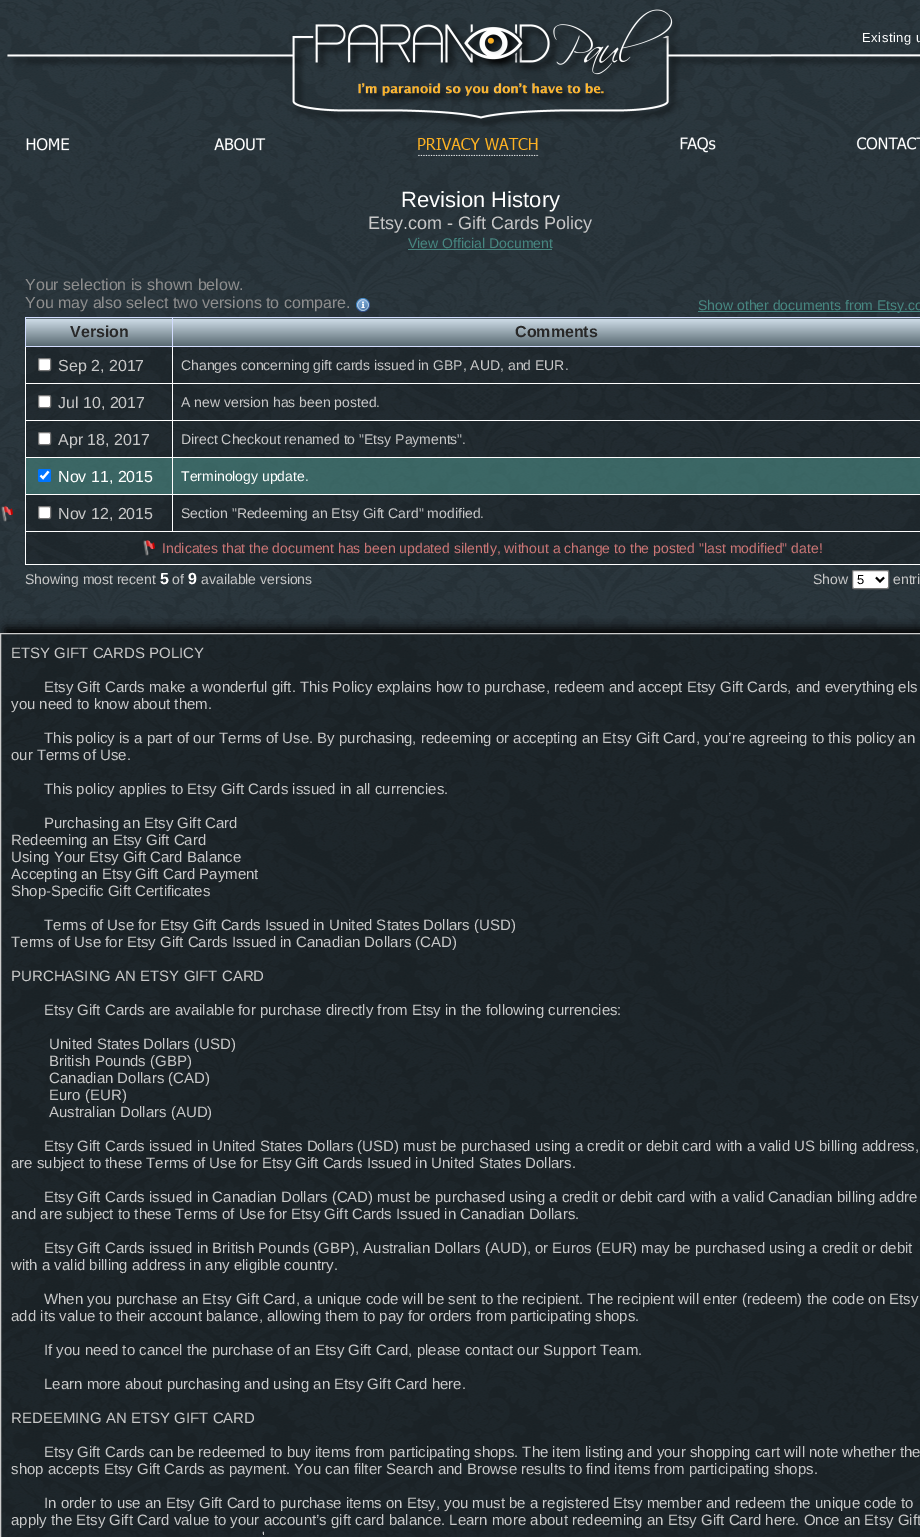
%!PS
<< /PageSize [920 1537] /PageUsesTransparency true >> setpagedevice
/rgb { dup -16 bitshift 255 div exch dup -8 bitshift 255 and 255 div exch 255 and 255 div setrgbcolor } def
/font { [ exch dup neg 0 0 3 -1 roll 0 0 ] selectfont } def
/text { moveto show } def
/alpha { dup .setfillconstantalpha .setstrokeconstantalpha } def
/roundrect { 5 dict begin { /r /h /w /y /x } { exch def } forall
  x r add y moveto x w add y 2 copy h add r arct x w add y h add x 1 index r arct
  x y h add x y r arct x y 2 copy exch w add exch r arct closepath end } def
/shadow { 12 dict begin { /a /b /q /h /w /y /x } { exch def } forall gsave /was 0 def
  9 -2 -9 { dup b mul 4 div /e exch def 1 sub .425 mul 2.718 exch exp 1 add a .99 .min exch div /now exch def
    1 1 now sub 1 was sub div sub alpha /was now def
    w h .min e 2 mul add 0 gt { x e sub y e sub w e 2 mul add h e 2 mul add
      q e add b .6 mul add w h .min 2 div e add .min 0 .max roundrect fill } if } for grestore end } def
/picture { 5 dict begin { /h /w /y /x /name } { exch def } forall
  gsave x y translate w h scale
  w h 8 [w 0 0 h 0 0] name (r) file false 3 colorimage grestore end } def
0 .pushpdf14devicefilter
0 1537 translate 1 -1 scale
4 setmiterlimit
/s1 { /LiberationSans-Regular 22 font 16#FFFFFF rgb } def
/s2 { /LiberationSans-Regular 18 font 16#C8C8C8 rgb } def
/s3 { /LiberationSans-Regular 14 font 16#478781 rgb } def
/s4 { /LiberationSans-Regular 16 font 16#8E8E8E rgb } def
/s5 { /LiberationSans-Bold 16 font 16#282828 rgb } def
/s6 { /LiberationSans-Regular 16 font 16#C8C8C8 rgb } def
/s7 { /LiberationSans-Regular 14 font 16#C8C8C8 rgb } def
/s8 { /LiberationSans-Regular 16 font 16#FFFFFF rgb } def
/s9 { /LiberationSans-Regular 14 font 16#FFFFFF rgb } def
/s10 { /LiberationSans-Regular 14 font 16#CC7676 rgb } def
/s11 { /LiberationSans-Bold 16 font 16#FFFFFF rgb } def
/s12 { /LiberationSans-Regular 13 font 16#000000 rgb } def
/s13 { /LiberationSans-Regular 15 font 16#C8C8C8 rgb } def
16#FFFFFF rgb
0 0 920 1537 rectfill
(pic1.raw) 0 0 920 137 picture
(pic2.raw) 7 35 913 92 picture
(pic3.raw) 315 9 365 73 picture
/LiberationSans-Regular 13 font
862 42 moveto 0.5 0 (Existing u) ashow
(pic9.raw) 0 137 920 1400 picture
(pic4.raw) 26 138 44 13 picture
(pic5.raw) 214 138 52 13 picture
(pic6.raw) 418 138 121 18 picture
(pic7.raw) 680 137 36 16 picture
(pic8.raw) 856 137 64 13 picture
s1
(Revision History) 401 207 text
s2
(Etsy.com - Gift Cards Policy) 368 229 text
s3
(View Official Document) 408 248 text
408 249 144 1 rectfill
s4
(Your selection is shown below.) 25 290 text
(You may also select two versions to compare.) 25 308 text
(pic10.raw) 356 298 14 14 picture
16#478781 rgb
698 311 222 1 rectfill
s3
(Show other documents from Etsy.co) 698 310 text
gsave 26 318 moveto 173 318 lineto 173 319 lineto 26 319 lineto closepath clip newpath
<< /ShadingType 2 /ColorSpace /DeviceRGB /Coords [100 292 100 319] /Extend [true true] /Function << /FunctionType 2 /Domain [0 1] /C0 [0.808 0.863 0.906] /C1 [0.349 0.416 0.447] /N 1 >> >> shfill grestore
gsave 26 319 moveto 172 319 lineto 172 346 lineto 26 346 lineto closepath clip newpath
<< /ShadingType 2 /ColorSpace /DeviceRGB /Coords [100 319 100 346] /Extend [true true] /Function << /FunctionType 2 /Domain [0 1] /C0 [0.808 0.863 0.906] /C1 [0.349 0.416 0.447] /N 1 >> >> shfill grestore
16#D3DDFF rgb
172 317 748 1 rectfill
16#FFFFFF rgb
172 383 748 1 rectfill
172 420 748 1 rectfill
172 457 748 1 rectfill
172 494 748 1 rectfill
25 531 895 1 rectfill
172 494 1 38 rectfill
25 494 148 1 rectfill
172 457 1 38 rectfill
25 457 148 1 rectfill
172 420 1 38 rectfill
25 420 148 1 rectfill
172 383 1 38 rectfill
25 383 148 1 rectfill
172 346 1 38 rectfill
16#D3DDFF rgb
172 346 748 1 rectfill
172 317 1 30 rectfill
25 317 148 1 rectfill
16#FFFFFF rgb
25 564 895 1 rectfill
25 531 1 34 rectfill
25 494 1 38 rectfill
25 457 1 38 rectfill
25 420 1 38 rectfill
25 346 1 75 rectfill
16#D3DDFF rgb
25 346 148 1 rectfill
25 317 1 30 rectfill
s5
(Version) 70 337 text
gsave 173 318 moveto 920 318 lineto 920 319 lineto 173 319 lineto closepath clip newpath
<< /ShadingType 2 /ColorSpace /DeviceRGB /Coords [557 292 557 319] /Extend [true true] /Function << /FunctionType 2 /Domain [0 1] /C0 [0.808 0.863 0.906] /C1 [0.349 0.416 0.447] /N 1 >> >> shfill grestore
gsave 173 319 moveto 920 319 lineto 920 346 lineto 173 346 lineto closepath clip newpath
<< /ShadingType 2 /ColorSpace /DeviceRGB /Coords [557 319 557 346] /Extend [true true] /Function << /FunctionType 2 /Domain [0 1] /C0 [0.808 0.863 0.906] /C1 [0.349 0.416 0.447] /N 1 >> >> shfill grestore
(Comments) 515 337 text
0.2 alpha
16#000000 rgb
26 347 146 36 rectfill
1 alpha
16#FFFFFF rgb
38.5 358.5 12 12 1.5 roundrect gsave fill grestore
16#767676 rgb
stroke
s6
(Sep 2, 2017) 58 371 text
0.2 alpha
16#000000 rgb
173 347 747 36 rectfill
1 alpha
s7
(Changes concerning gift cards issued in GBP, AUD, and EUR.) 181 370 text
0.2 alpha
16#000000 rgb
26 384 146 36 rectfill
1 alpha
16#FFFFFF rgb
38.5 395.5 12 12 1.5 roundrect gsave fill grestore
16#767676 rgb
stroke
s6
(Jul 10, 2017) 58 408 text
0.2 alpha
16#000000 rgb
173 384 747 36 rectfill
1 alpha
s7
(A new version has been posted.) 181 407 text
0.2 alpha
16#000000 rgb
26 421 146 36 rectfill
1 alpha
16#FFFFFF rgb
38.5 432.5 12 12 1.5 roundrect gsave fill grestore
16#767676 rgb
stroke
s6
(Apr 18, 2017) 58 445 text
0.2 alpha
16#000000 rgb
173 421 747 36 rectfill
1 alpha
s7
(Direct Checkout renamed to "Etsy Payments".) 181 444 text
0.6 alpha
16#478780 rgb
26 458 146 36 rectfill
1 alpha
16#0075FF rgb
38 469 13 13 2 roundrect fill
16#FFFFFF rgb
2.1 setlinewidth
40.5 475.5 moveto 43 478 lineto 48.5 471.5 lineto stroke
s8
(Nov 11, 2015) 58 482 text
0.6 alpha
16#478780 rgb
173 458 747 36 rectfill
1 alpha
s9
(Terminology update.) 181 481 text
(pic11.raw) 1 506 12 16 picture
0.2 alpha
16#000000 rgb
26 495 146 36 rectfill
1 alpha
16#FFFFFF rgb
38.5 506.5 12 12 1.5 roundrect gsave fill grestore
16#767676 rgb
1 setlinewidth
stroke
s6
(Nov 12, 2015) 58 519 text
0.2 alpha
16#000000 rgb
173 495 747 36 rectfill
1 alpha
s7
(Section "Redeeming an Etsy Gift Card" modified.) 181 518 text
0.2 alpha
16#000000 rgb
26 532 894 32 rectfill
1 alpha
(pic12.raw) 143 540 12 16 picture
s10
(Indicates that the document has been updated silently, without a change to the posted "last modified" date!) 162 553 text
s7
(Showing most recent) 25 584 text
s11
(5) 160 584 text
s7
(of) 172 584 text
s11
(9) 188 584 text
s7
(available versions) 201 584 text
(Show) 813 584 text
16#FFFFFF rgb
852.5 570.5 36 18 1.5 roundrect gsave fill grestore
16#767676 rgb
stroke
16#000000 rgb
2 setlinewidth
876 577.5 moveto 880 581.5 lineto 884 577.5 lineto stroke
s12
(5) 857 584 text
s7
(entri) 893 584 text
gsave
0 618 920 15 rectclip
16#000000 rgb
5 628 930 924 0 5 1 shadow
grestore
0.3 alpha
16#000000 rgb
0.5 633.5 moveto 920.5 633.5 lineto 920.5 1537.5 lineto 0.5 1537.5 lineto closepath fill
1 alpha
16#CCCCCC rgb
1 setlinewidth
0.5 633.5 moveto 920.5 633.5 lineto 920.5 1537.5 lineto 0.5 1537.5 lineto closepath stroke
s13
(ETSY GIFT CARDS POLICY) 11 658 text
(Etsy Gift Cards make a wonderful gift. This Policy explains how to purchase, redeem and accept Etsy Gift Cards, and everything els) 44 692 text
(you need to know about them.) 11 709 text
(This policy is a part of our Terms of Use. By purchasing, redeeming or accepting an Etsy Gift Card, you’re agreeing to this policy an) 44 743 text
(our Terms of Use.) 11 760 text
(This policy applies to Etsy Gift Cards issued in all currencies.) 44 794 text
(Purchasing an Etsy Gift Card) 44 828 text
(Redeeming an Etsy Gift Card) 11 845 text
(Using Your Etsy Gift Card Balance) 11 862 text
(Accepting an Etsy Gift Card Payment) 11 879 text
(Shop-Specific Gift Certificates) 11 896 text
(Terms of Use for Etsy Gift Cards Issued in United States Dollars \(USD\)) 44 930 text
(Terms of Use for Etsy Gift Cards Issued in Canadian Dollars \(CAD\)) 11 947 text
(PURCHASING AN ETSY GIFT CARD) 11 981 text
(Etsy Gift Cards are available for purchase directly from Etsy in the following currencies:) 44 1015 text
(United States Dollars \(USD\)) 49 1049 text
(British Pounds \(GBP\)) 49 1066 text
(Canadian Dollars \(CAD\)) 49 1083 text
(Euro \(EUR\)) 49 1100 text
(Australian Dollars \(AUD\)) 49 1117 text
(Etsy Gift Cards issued in United States Dollars \(USD\) must be purchased using a credit or debit card with a valid US billing address,) 44 1151 text
(are subject to these Terms of Use for Etsy Gift Cards Issued in United States Dollars.) 11 1168 text
(Etsy Gift Cards issued in Canadian Dollars \(CAD\) must be purchased using a credit or debit card with a valid Canadian billing addre) 44 1202 text
(and are subject to these Terms of Use for Etsy Gift Cards Issued in Canadian Dollars.) 11 1219 text
(Etsy Gift Cards issued in British Pounds \(GBP\), Australian Dollars \(AUD\), or Euros \(EUR\) may be purchased using a credit or debit) 44 1253 text
(with a valid billing address in any eligible country.) 11 1270 text
(When you purchase an Etsy Gift Card, a unique code will be sent to the recipient. The recipient will enter \(redeem\) the code on Etsy) 44 1304 text
(add its value to their account balance, allowing them to pay for orders from participating shops.) 11 1321 text
(If you need to cancel the purchase of an Etsy Gift Card, please contact our Support Team.) 44 1355 text
(Learn more about purchasing and using an Etsy Gift Card here.) 44 1389 text
(REDEEMING AN ETSY GIFT CARD) 11 1423 text
(Etsy Gift Cards can be redeemed to buy items from participating shops. The item listing and your shopping cart will note whether the) 44 1457 text
(shop accepts Etsy Gift Cards as payment. You can filter Search and Browse results to find items from participating shops.) 11 1474 text
(In order to use an Etsy Gift Card to purchase items on Etsy, you must be a registered Etsy member and redeem the unique code to) 44 1508 text
(apply the Etsy Gift Card value to your account’s gift card balance. Learn more about redeeming an Etsy Gift Card here. Once an Etsy Gift) 11 1525 text
(') 262 1542 text
.poppdf14devicefilter showpage
